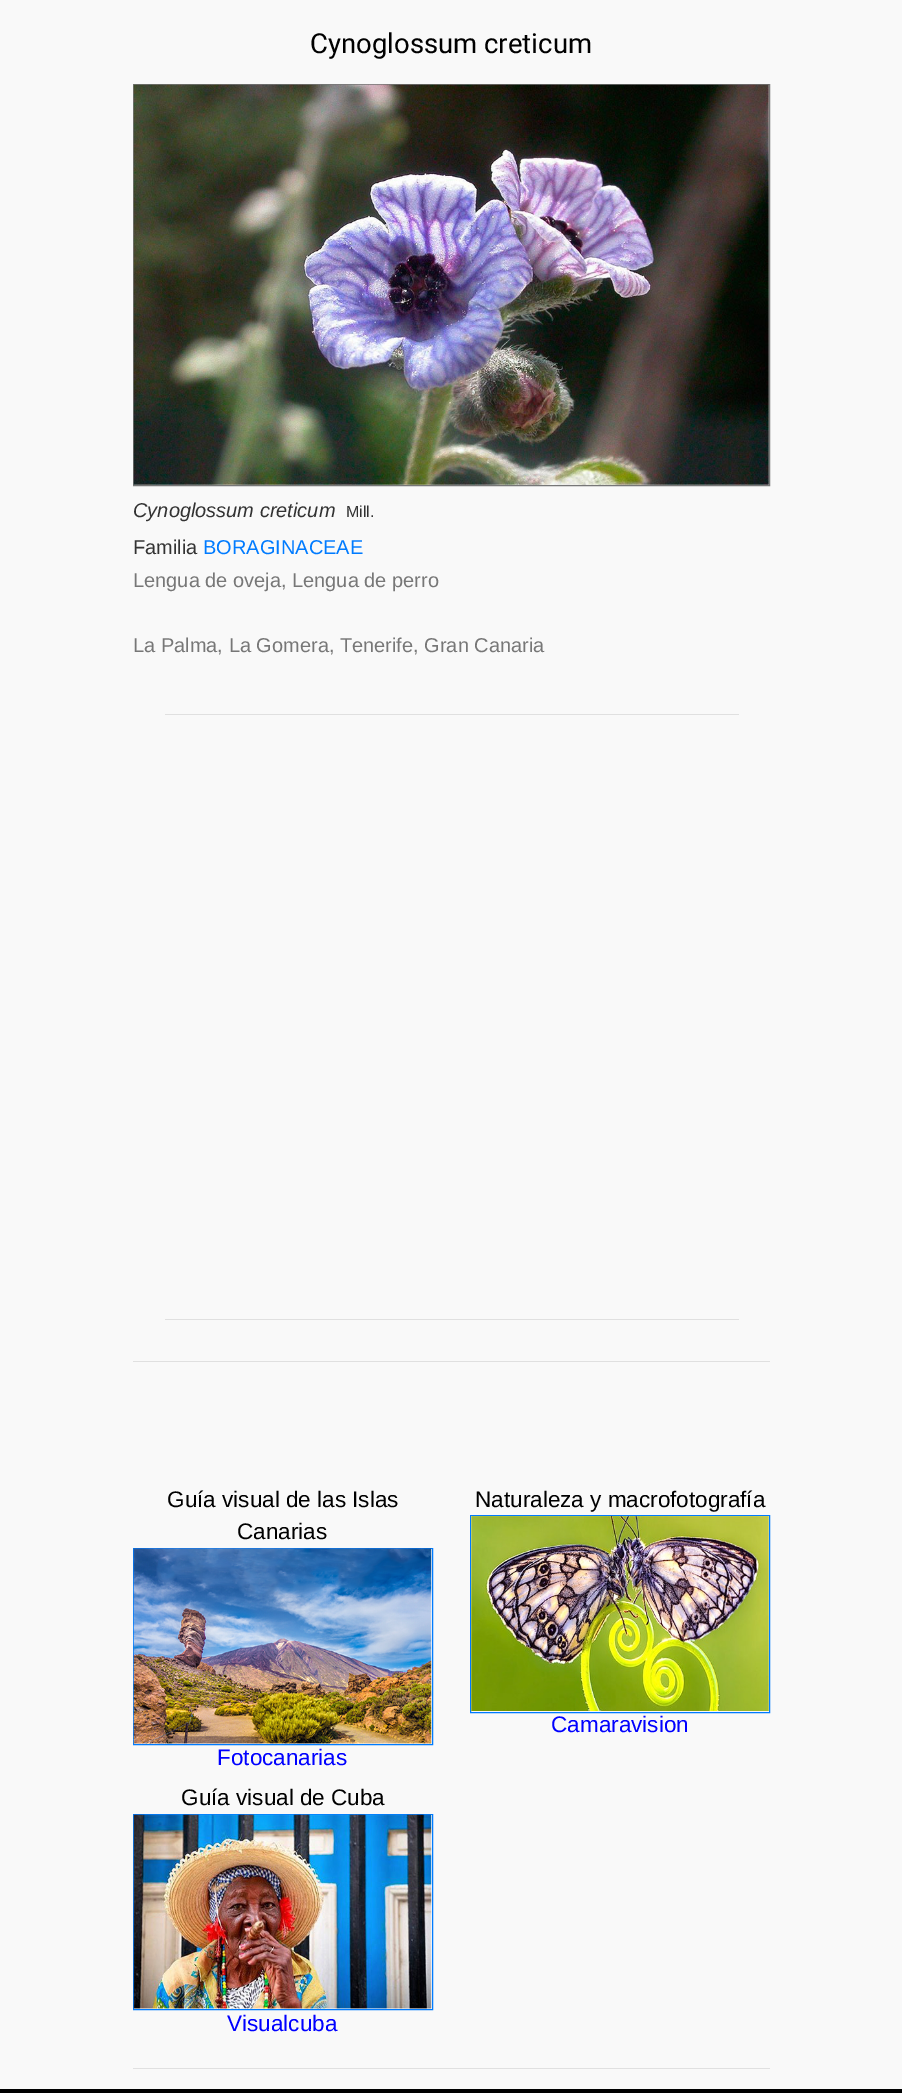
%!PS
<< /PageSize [902 2093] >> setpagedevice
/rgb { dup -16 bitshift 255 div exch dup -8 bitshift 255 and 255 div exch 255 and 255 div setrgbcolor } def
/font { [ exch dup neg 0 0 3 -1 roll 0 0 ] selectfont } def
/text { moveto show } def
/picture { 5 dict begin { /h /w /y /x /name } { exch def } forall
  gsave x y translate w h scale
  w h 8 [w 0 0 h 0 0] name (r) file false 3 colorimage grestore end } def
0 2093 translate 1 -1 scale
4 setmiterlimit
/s1 { /Heebo-Regular 27.5 font 16#000000 rgb } def
/s2 { /LiberationSans-Italic 20 font 16#333333 rgb } def
/s3 { /LiberationSans-Regular 16 font 16#333333 rgb } def
/s4 { /LiberationSans-Regular 20 font 16#333333 rgb } def
/s5 { /LiberationSans-Regular 20 font 16#007BFF rgb } def
/s6 { /LiberationSans-Regular 20 font 16#777777 rgb } def
/s7 { /LiberationSans-Regular 22.5 font 16#000000 rgb } def
/s8 { /LiberationSans-Regular 22.5 font 16#0000FF rgb } def
16#F9F9F9 rgb
0 0 902 2093 rectfill
s1
(Cynoglossum creticum) 310 53 text
16#777777 rgb
133.5 84.5 636 401 rectstroke
(pic1.raw) 133 84 636 401 picture
s2
(Cynoglossum creticum) 133 517 text
s3
(Mill.) 346 517 text
s4
(Familia) 133 554 text
s5
(BORAGINACEAE) 203 554 text
s6
(Lengua de oveja, Lengua de perro) 133 587 text
(La Palma, La Gomera, Tenerife, Gran Canaria) 133 652 text
16#E0E0E0 rgb
165 714 574 1 rectfill
165 1319 574 1 rectfill
133 1361 637 1 rectfill
s7
(Guía visual de las Islas) 167 1507 text
(Canarias) 237 1539 text
16#007BFF rgb
133.5 1548.5 299 196 rectstroke
(pic2.raw) 133 1548 299 196 picture
s8
(Fotocanarias) 217 1765 text
s7
(Naturaleza y macrofotografía) 475 1507 text
16#007BFF rgb
470.5 1515.5 299 197 rectstroke
(pic3.raw) 471 1516 298 195 picture
s8
(Camaravision) 551 1732 text
s7
(Guía visual de Cuba) 181 1805 text
16#007BFF rgb
133.5 1814.5 299 195 rectstroke
(pic4.raw) 133 1814 299 195 picture
s8
(Visualcuba) 227 2031 text
16#E0E0E0 rgb
133 2068 637 1 rectfill
16#000000 rgb
0 2089 902 4 rectfill
showpage
